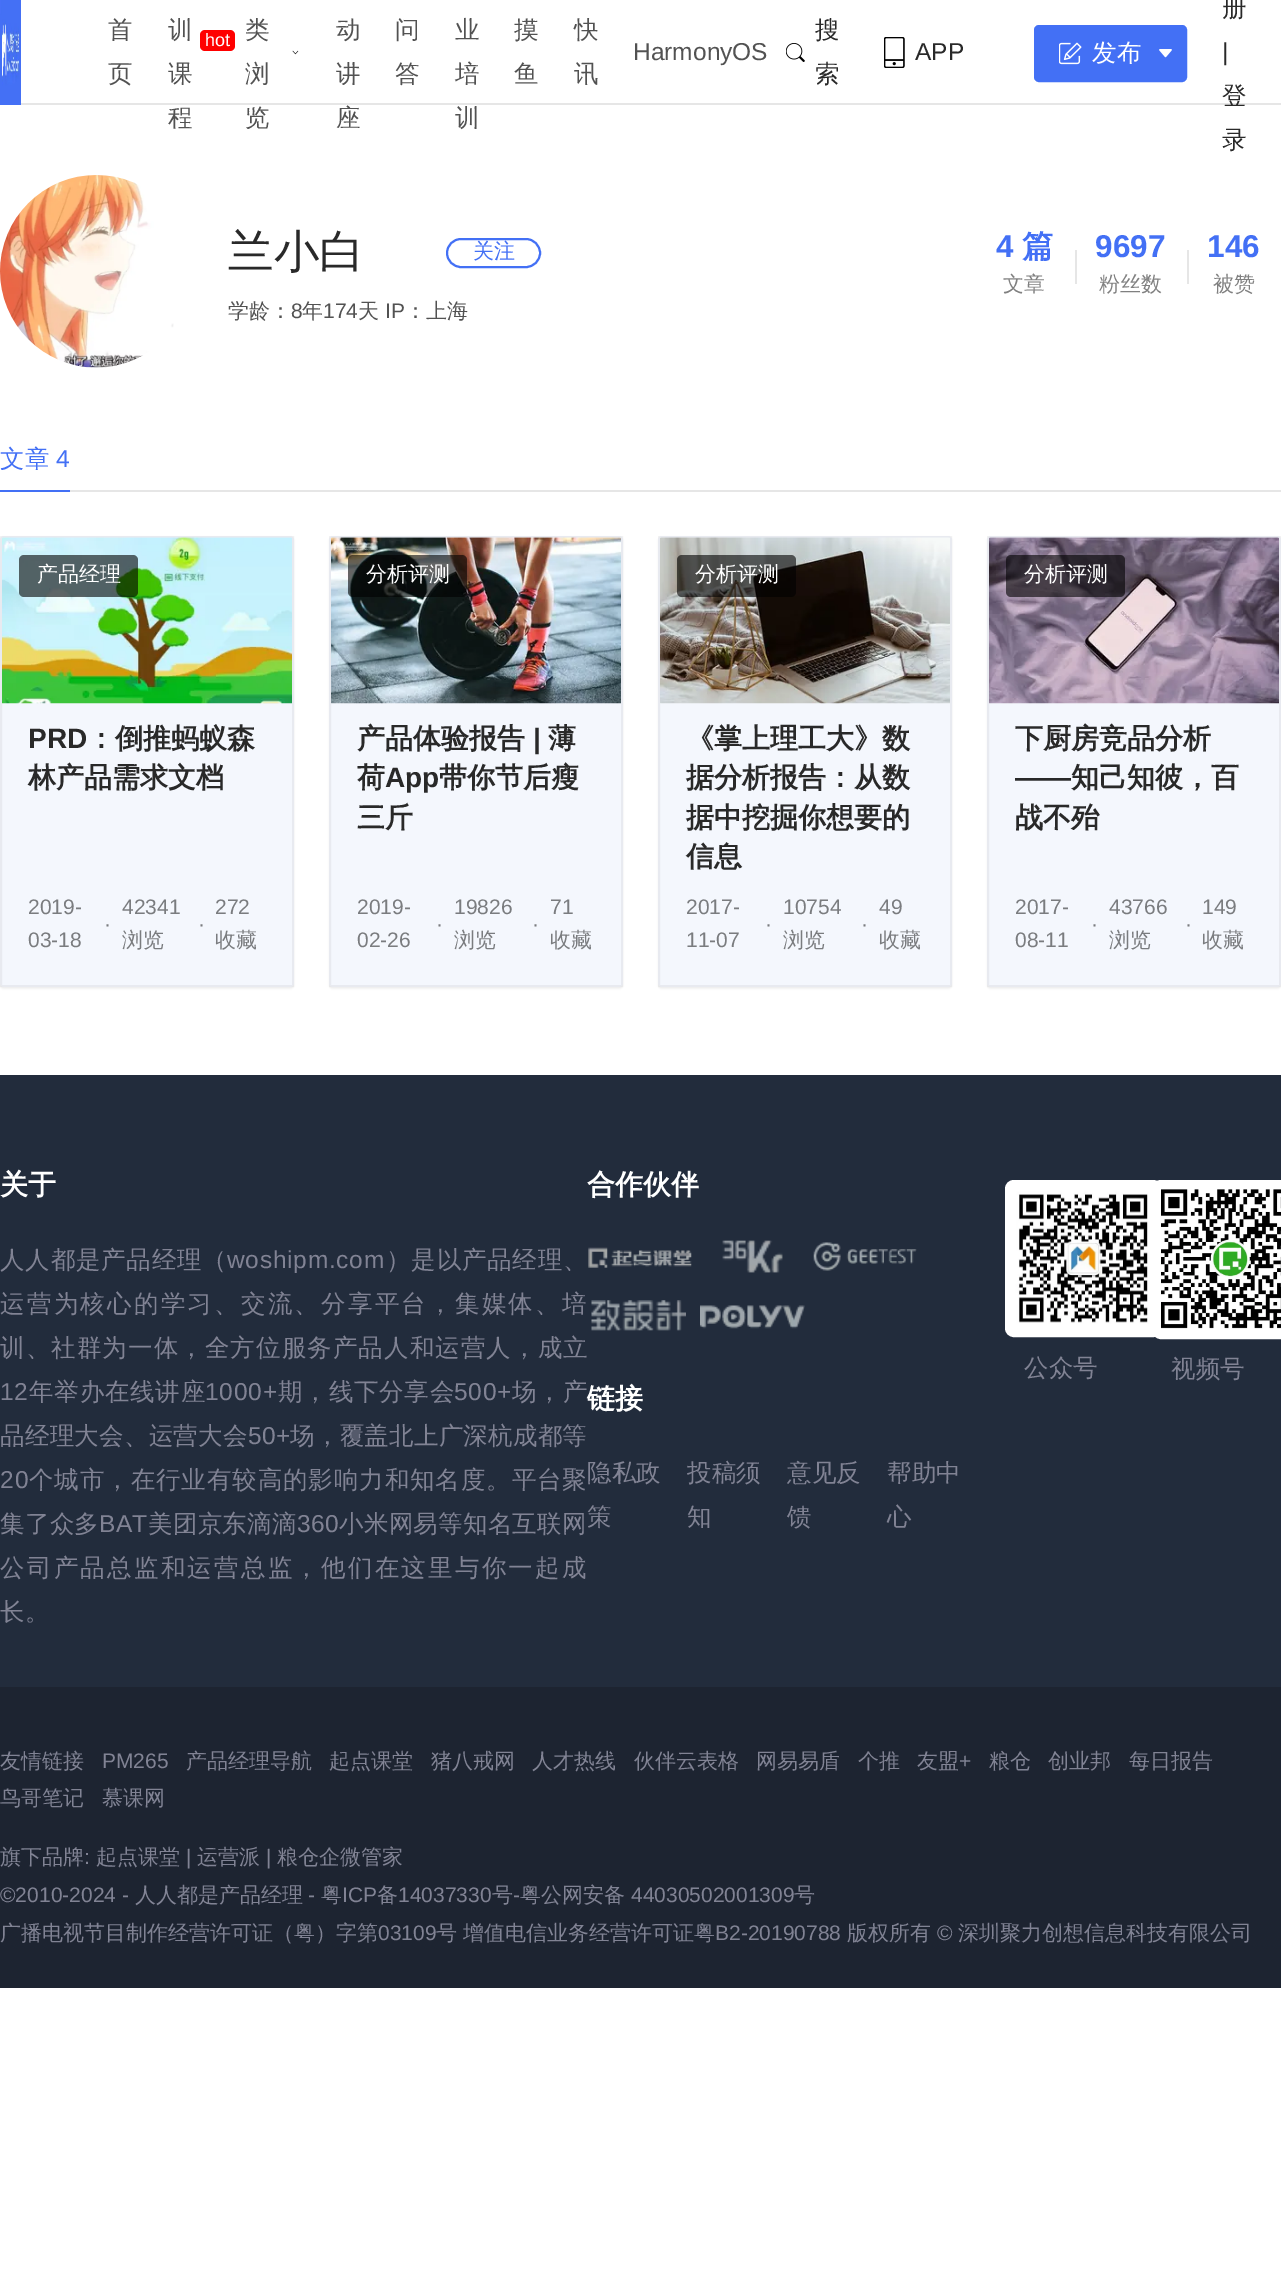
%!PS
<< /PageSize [1281 2288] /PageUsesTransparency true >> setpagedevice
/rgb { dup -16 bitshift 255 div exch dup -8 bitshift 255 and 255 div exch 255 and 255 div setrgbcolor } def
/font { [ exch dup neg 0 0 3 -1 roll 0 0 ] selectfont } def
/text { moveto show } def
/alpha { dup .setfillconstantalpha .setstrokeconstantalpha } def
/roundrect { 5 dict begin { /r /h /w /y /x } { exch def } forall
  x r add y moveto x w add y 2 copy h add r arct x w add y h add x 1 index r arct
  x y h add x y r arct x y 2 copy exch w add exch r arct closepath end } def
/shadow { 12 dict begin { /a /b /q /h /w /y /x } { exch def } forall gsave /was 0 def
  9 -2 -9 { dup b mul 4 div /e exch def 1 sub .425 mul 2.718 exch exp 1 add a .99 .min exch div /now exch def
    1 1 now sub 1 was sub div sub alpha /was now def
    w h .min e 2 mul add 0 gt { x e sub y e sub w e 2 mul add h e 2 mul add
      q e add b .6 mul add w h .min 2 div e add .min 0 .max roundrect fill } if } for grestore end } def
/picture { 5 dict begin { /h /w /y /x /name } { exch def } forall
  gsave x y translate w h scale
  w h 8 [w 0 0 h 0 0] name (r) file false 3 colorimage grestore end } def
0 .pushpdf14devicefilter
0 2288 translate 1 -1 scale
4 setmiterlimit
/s1 { /WenQuanYiZenHei-Medium 24.5 font 16#525252 rgb } def
/s2 { /LiberationSans-Regular 18 font 16#FFFFFF rgb } def
/s3 { /LiberationSans-Regular 24.5 font 16#525252 rgb } def
/s4 { /WenQuanYiZenHei-Medium 24.5 font 16#292929 rgb } def
/s5 { /LiberationSans-Regular 24.5 font 16#292929 rgb } def
/s6 { /WenQuanYiZenHei-Medium 24.5 font 16#FFFFFF rgb } def
/s7 { /WenQuanYiZenHei-Medium 45.5 font 16#292929 rgb } def
/s8 { /WenQuanYiZenHei-Medium 21 font 16#4370F5 rgb } def
/s9 { /WenQuanYiZenHei-Medium 21 font 16#525252 rgb } def
/s10 { /LiberationSans-Regular 21 font 16#525252 rgb } def
/s11 { /LiberationSans-Bold 31.5 font 16#4370F5 rgb } def
/s12 { /WenQuanYiZenHei-Bold 31.5 font 16#4370F5 rgb } def
/s13 { /WenQuanYiZenHei-Medium 21 font 16#808080 rgb } def
/s14 { /WenQuanYiZenHei-Medium 24.5 font 16#4370F5 rgb } def
/s15 { /LiberationSans-Regular 24.5 font 16#4370F5 rgb } def
/s16 { /WenQuanYiZenHei-Medium 21 font 16#FFFFFF rgb } def
/s17 { /LiberationSans-Bold 28 font 16#292929 rgb } def
/s18 { /WenQuanYiZenHei-Bold 28 font 16#292929 rgb } def
/s19 { /LiberationSans-Regular 21 font 16#7A7C7F rgb } def
/s20 { /WenQuanYiZenHei-Medium 21 font 16#7A7C7F rgb } def
/s21 { /WenQuanYiZenHei-Bold 28 font 16#FFFFFF rgb } def
/s22 { /WenQuanYiZenHei-Medium 24.5 font 16#818394 rgb } def
/s23 { /WenQuanYiZenHei-Medium 21 font 16#818394 rgb } def
/s24 { /LiberationSans-Regular 21 font 16#818394 rgb } def
16#FFFFFF rgb
0 0 1281 2288 rectfill
16#E6E6E6 rgb
21 103 1260 2 rectfill
(pic1.raw) 0 0 21 105 picture
s1
(首) 108 38 text
(页) 108 82 text
(训) 168 38 text
(课) 168 82 text
(程) 168 126 text
16#FF0000 rgb
200 30 35 21 5 roundrect fill
s2
(hot) 205 46 text
s1
(类) 245 38 text
(浏) 245 82 text
(览) 245 126 text
(pic2.raw) 292 50 7 5 picture
(动) 336 38 text
(讲) 336 82 text
(座) 336 126 text
(问) 395 38 text
(答) 395 82 text
(业) 455 38 text
(培) 455 82 text
(训) 455 126 text
(摸) 514 38 text
(鱼) 514 82 text
(快) 574 38 text
(讯) 574 82 text
s3
(HarmonyOS) 633 60 text
s4
(搜) 815 38 text
(pic3.raw) 786 43 19 19 picture
(索) 815 82 text
(pic4.raw) 884 37 21 31 picture
s5
(APP) 915 60 text
16#4370F5 rgb
1035 26 151 55 4 roundrect gsave fill grestore
2 setlinewidth
stroke
(pic5.raw) 1059 42 23 23 picture
s6
(发布) 1092 61 text
(pic6.raw) 1159 49 13 9 picture
s4
(册) 1222 16 text
s5
(|) 1222 60 text
s4
(登) 1222 104 text
(录) 1222 148 text
(pic7.raw) 0 175 174 193 picture
s7
(兰小白) 228 267 text
16#4370F5 rgb
447 239 93 28 14 roundrect stroke
s8
(关注) 473 258 text
s9
(学龄：) 228 318 text
s10
(8) 291 318 text
s9
(年) 302 318 text
s10
(174) 323 318 text
s9
(天) 358 318 text
s10
(IP) 385 318 text
s9
(：上海) 405 318 text
s11
(4) 996 257 text
s12
(篇) 1022 257 text
s13
(文章) 1003 291 text
s11
(9697) 1095 257 text
16#E6E6E6 rgb
1075 250 2 34 rectfill
s13
(粉丝数) 1099 291 text
s11
(146) 1207 257 text
16#E6E6E6 rgb
1187 250 2 34 rectfill
s13
(被赞) 1213 291 text
16#E6E6E6 rgb
70 490 1211 2 rectfill
16#4370F5 rgb
0 490 70 2 rectfill
s14
(文章) 0 467 text
s15
(4) 56 467 text
16#000000 rgb
0 537 294 452 4 1 0.05 shadow
16#F4F7FD rgb
0 536 294 451 4 roundrect fill
0.05 alpha
16#000000 rgb
1 537 292 449 rectstroke
1 alpha
(pic8.raw) 2 537 290 167 picture
0.6 alpha
19 555 119 42 5 roundrect fill
1 alpha
s16
(产品经理) 37 581 text
s17
(PRD) 28 748 text
s18
(：倒推蚂蚁森) 87 748 text
(林产品需求文档) 28 787 text
s19
(2019-) 28 914 text
(03-18) 28 947 text
(·) 104 931 text
(42341) 122 914 text
s20
(浏览) 122 947 text
s19
(·) 198 931 text
(272) 215 914 text
s20
(收藏) 215 947 text
16#000000 rgb
329 537 294 452 4 1 0.05 shadow
16#F4F7FD rgb
329 536 294 451 4 roundrect fill
0.05 alpha
16#000000 rgb
330 537 292 449 rectstroke
1 alpha
(pic9.raw) 331 537 290 167 picture
0.6 alpha
348 555 119 42 5 roundrect fill
1 alpha
s16
(分析评测) 366 581 text
s18
(产品体验报告) 357 748 text
s17
(|) 533 748 text
s18
(薄) 548 748 text
(荷) 357 787 text
s17
(App) 385 787 text
s18
(带你节后瘦) 439 787 text
(三斤) 357 827 text
s19
(2019-) 357 914 text
(02-26) 357 947 text
(·) 436 931 text
(19826) 454 914 text
s20
(浏览) 454 947 text
s19
(·) 532 931 text
(71) 550 914 text
s20
(收藏) 550 947 text
16#000000 rgb
658 537 294 452 4 1 0.05 shadow
16#F4F7FD rgb
658 536 294 451 4 roundrect fill
0.05 alpha
16#000000 rgb
659 537 292 449 rectstroke
1 alpha
(pic10.raw) 660 537 290 167 picture
0.6 alpha
677 555 119 42 5 roundrect fill
1 alpha
s16
(分析评测) 695 581 text
s18
(《掌上理工大》数) 686 748 text
(据分析报告：从数) 686 787 text
(据中挖掘你想要的) 686 827 text
(信息) 686 866 text
s19
(2017-) 686 914 text
(11-07) 686 947 text
(·) 765 931 text
(10754) 783 914 text
s20
(浏览) 783 947 text
s19
(·) 861 931 text
(49) 879 914 text
s20
(收藏) 879 947 text
16#000000 rgb
987 537 294 452 4 1 0.05 shadow
16#F4F7FD rgb
987 536 294 451 4 roundrect fill
0.05 alpha
16#000000 rgb
988 537 292 449 rectstroke
1 alpha
(pic11.raw) 989 537 290 167 picture
0.6 alpha
1006 555 119 42 5 roundrect fill
1 alpha
s16
(分析评测) 1024 581 text
s18
(下厨房竞品分析) 1015 748 text
s17
(——) 1015 787 text
s18
(知己知彼，百) 1071 787 text
(战不殆) 1015 827 text
s19
(2017-) 1015 914 text
(08-11) 1015 947 text
(·) 1091 931 text
(43766) 1109 914 text
s20
(浏览) 1109 947 text
s19
(·) 1185 931 text
(149) 1202 914 text
s20
(收藏) 1202 947 text
16#222C3C rgb
0 1075 1281 612 rectfill
s21
(关于) 0 1194 text
/WenQuanYiZenHei-Medium 24.5 font
16#818394 rgb
0 1268 moveto 0.75 0 (人人都是产品经理（) ashow
/LiberationSans-Regular 24.5 font
227 1268 moveto 0.75 0 (woshipm.com) ashow
/WenQuanYiZenHei-Medium 24.5 font
386 1268 moveto 0.75 0 (）是以产品经理、) ashow
0 1312 moveto 2.25 0 (运营为核心的学习、交流、分享平台，集媒体、培) ashow
0 1356 moveto 1.1 0 (训、社群为一体，全方位服务产品人和运营人，成立) ashow
/LiberationSans-Regular 24.5 font
0 1400 moveto 0.75 0 (12) ashow
/WenQuanYiZenHei-Medium 24.5 font
29 1400 moveto 0.75 0 (年举办在线讲座) ashow
/LiberationSans-Regular 24.5 font
205 1400 moveto 0.75 0 (1000+) ashow
/WenQuanYiZenHei-Medium 24.5 font
278 1400 moveto 0.75 0 (期，线下分享会) ashow
/LiberationSans-Regular 24.5 font
454 1400 moveto 0.75 0 (500+) ashow
/WenQuanYiZenHei-Medium 24.5 font
512 1400 moveto 0.75 0 (场，产) ashow
0 1444 moveto 0.25 0 (品经理大会、运营大会) ashow
/LiberationSans-Regular 24.5 font
248 1444 moveto 0.25 0 (50+) ashow
/WenQuanYiZenHei-Medium 24.5 font
290 1444 moveto 0.25 0 (场，覆盖北上广深杭成都等) ashow
/LiberationSans-Regular 24.5 font
0 1488 moveto 0.9 0 (20) ashow
/WenQuanYiZenHei-Medium 24.5 font
29 1488 moveto 0.9 0 (个城市，在行业有较高的影响力和知名度。平台聚) ashow
0 1532 moveto 0.25 0 (集了众多) ashow
/LiberationSans-Regular 24.5 font
99 1532 moveto 0.25 0 (BAT) ashow
/WenQuanYiZenHei-Medium 24.5 font
148 1532 moveto 0.25 0 (美团京东滴滴) ashow
/LiberationSans-Regular 24.5 font
297 1532 moveto 0.25 0 (360) ashow
/WenQuanYiZenHei-Medium 24.5 font
339 1532 moveto 0.25 0 (小米网易等知名互联网) ashow
0 1576 moveto 2.25 0 (公司产品总监和运营总监，他们在这里与你一起成) ashow
(长。) 0 1620 text
s21
(合作伙伴) 587 1194 text
(pic12.raw) 588 1247 104 21 picture
(pic13.raw) 722 1240 61 33 picture
(pic14.raw) 813 1242 104 29 picture
(pic15.raw) 591 1300 95 31 picture
(pic16.raw) 700 1305 105 24 picture
(链接) 587 1408 text
s22
(隐私政) 587 1481 text
(策) 587 1525 text
(投稿须) 687 1481 text
(知) 687 1525 text
(意见反) 787 1481 text
(馈) 787 1525 text
(帮助中) 887 1481 text
(心) 887 1525 text
16#FFFFFF rgb
9 setlinewidth
1009.5 1184.5 148 148 4.5 roundrect stroke
(pic17.raw) 1014 1189 138 139 picture
s22
(公众号) 1024 1376 text
16#FFFFFF rgb
1156.5 1184.5 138 150 4.5 roundrect stroke
(pic18.raw) 1161 1189 120 141 picture
s22
(视频号) 1171 1377 text
16#1D2431 rgb
0 1687 1281 301 rectfill
s23
(友情链接) 0 1768 text
s24
(PM265) 102 1768 text
s23
(产品经理导航) 186 1768 text
(起点课堂) 329 1768 text
(猪八戒网) 431 1768 text
(人才热线) 532 1768 text
(伙伴云表格) 634 1768 text
(网易易盾) 756 1768 text
(个推) 858 1768 text
(友盟) 917 1768 text
s24
(+) 959 1768 text
s23
(粮仓) 989 1768 text
(创业邦) 1048 1768 text
(每日报告) 1129 1768 text
(鸟哥笔记) 0 1805 text
(慕课网) 102 1805 text
(旗下品牌) 0 1864 text
s24
(:) 84 1864 text
s23
(起点课堂) 96 1864 text
s24
(|) 186 1864 text
s23
(运营派) 197 1864 text
s24
(|) 266 1864 text
s23
(粮仓企微管家) 277 1864 text
s24
(©2010-2024 -) 0 1902 text
s23
(人人都是产品经理) 135 1902 text
s24
(-) 308 1902 text
s23
(粤) 321 1902 text
s24
(ICP) 342 1902 text
s23
(备) 377 1902 text
s24
(14037330) 398 1902 text
s23
(号) 492 1902 text
s24
(-) 513 1902 text
s23
(粤公网安备) 520 1902 text
s24
(44030502001309) 631 1902 text
s23
(号) 794 1902 text
(广播电视节目制作经营许可证（粤）字第) 0 1940 text
s24
(03109) 378 1940 text
s23
(号) 436 1940 text
(增值电信业务经营许可证粤) 463 1940 text
s24
(B2-20190788) 715 1940 text
s23
(版权所有) 847 1940 text
s24
(©) 937 1940 text
s23
(深圳聚力创想信息科技有限公司) 958 1940 text
.poppdf14devicefilter showpage
